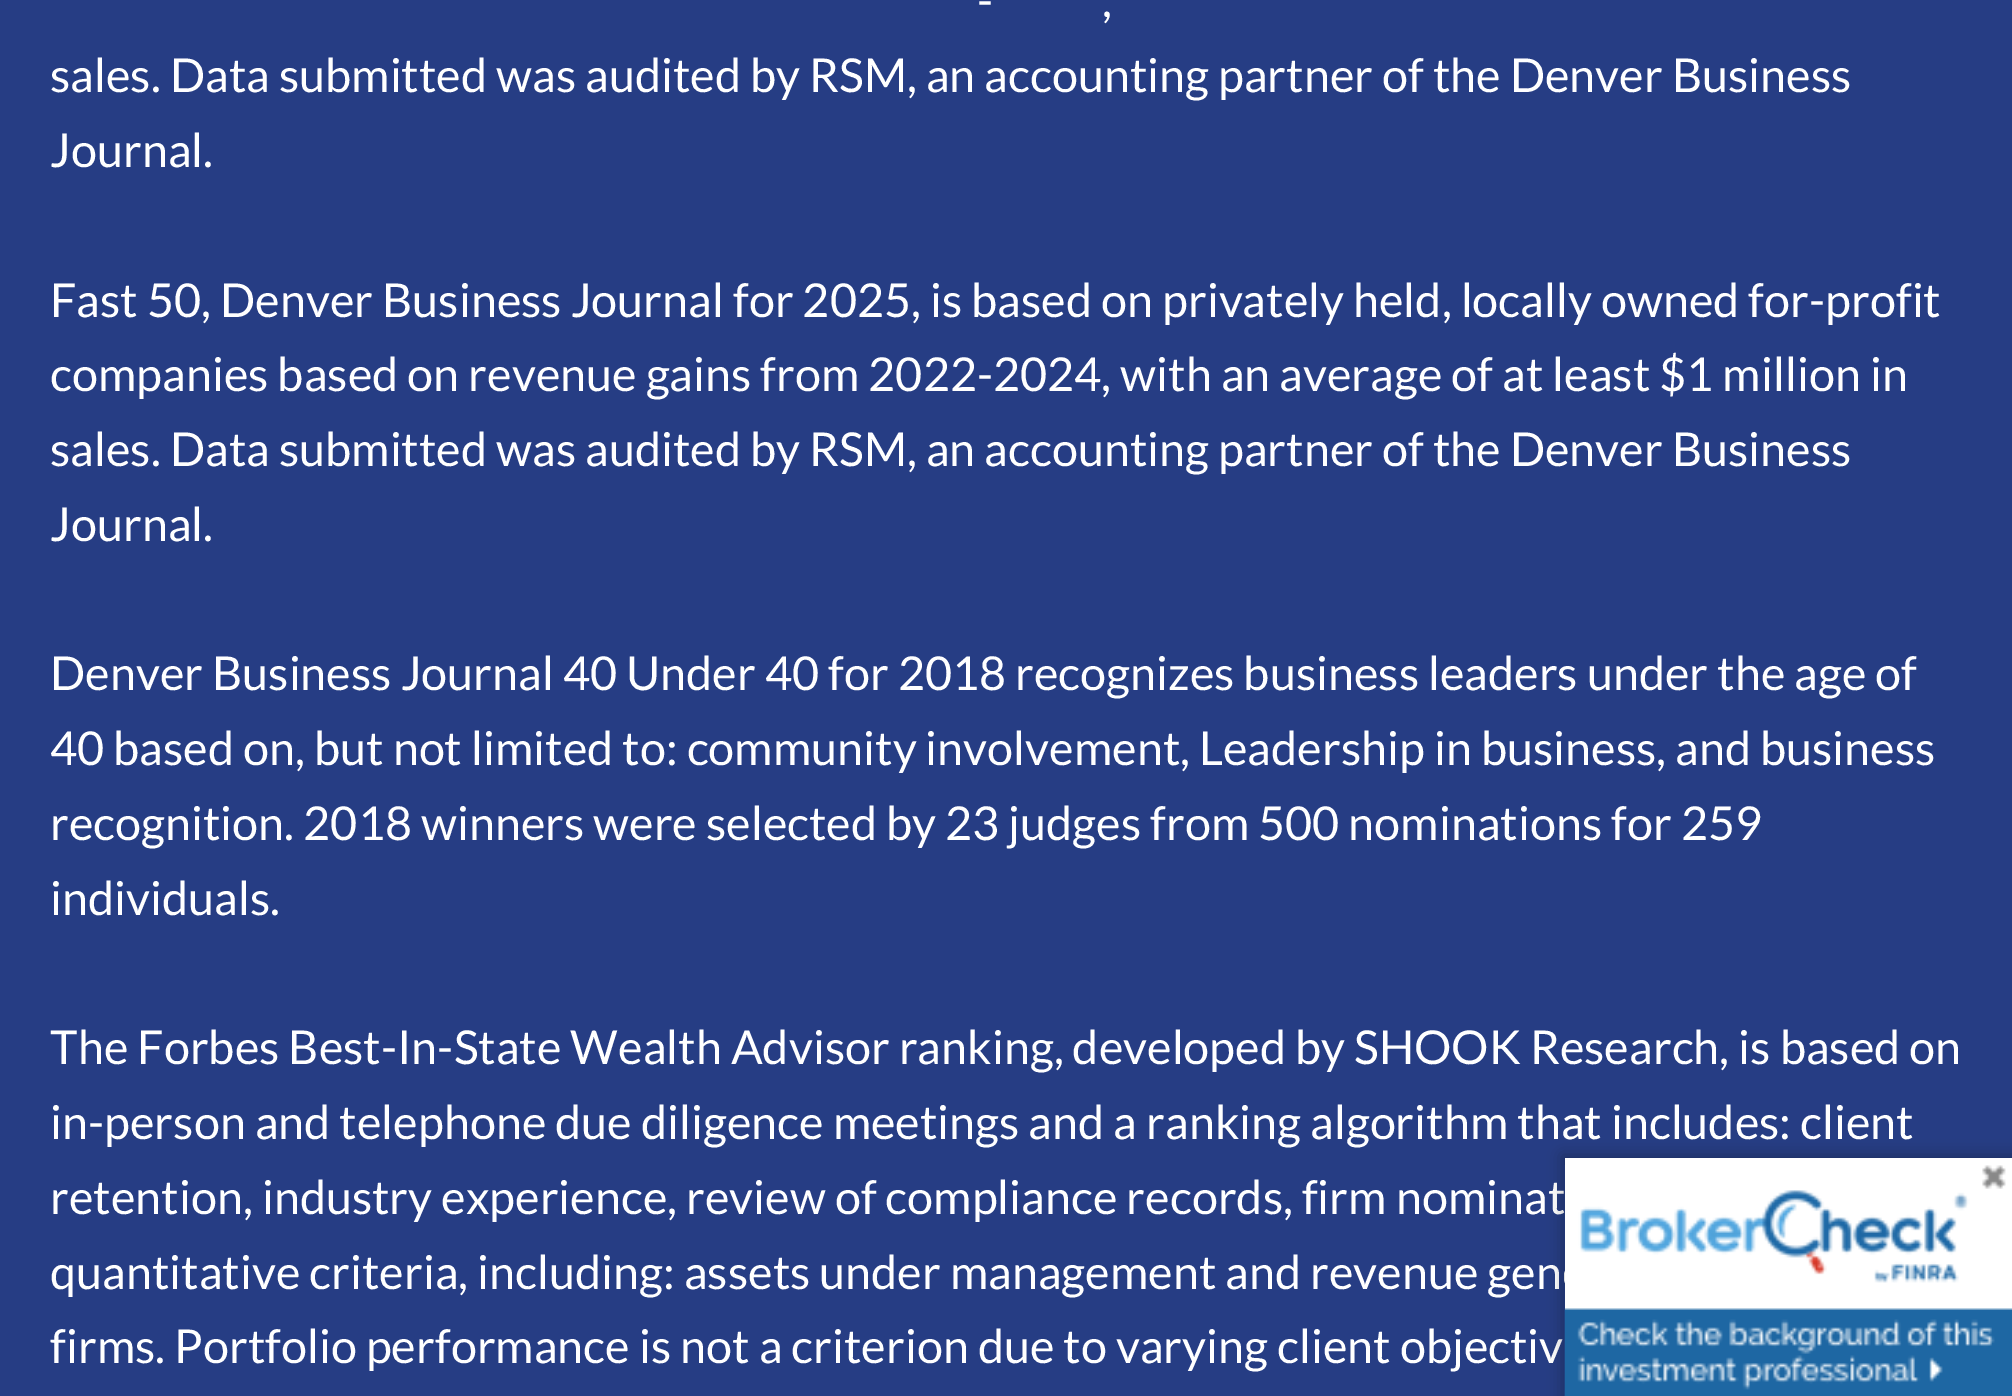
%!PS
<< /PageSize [2012 1396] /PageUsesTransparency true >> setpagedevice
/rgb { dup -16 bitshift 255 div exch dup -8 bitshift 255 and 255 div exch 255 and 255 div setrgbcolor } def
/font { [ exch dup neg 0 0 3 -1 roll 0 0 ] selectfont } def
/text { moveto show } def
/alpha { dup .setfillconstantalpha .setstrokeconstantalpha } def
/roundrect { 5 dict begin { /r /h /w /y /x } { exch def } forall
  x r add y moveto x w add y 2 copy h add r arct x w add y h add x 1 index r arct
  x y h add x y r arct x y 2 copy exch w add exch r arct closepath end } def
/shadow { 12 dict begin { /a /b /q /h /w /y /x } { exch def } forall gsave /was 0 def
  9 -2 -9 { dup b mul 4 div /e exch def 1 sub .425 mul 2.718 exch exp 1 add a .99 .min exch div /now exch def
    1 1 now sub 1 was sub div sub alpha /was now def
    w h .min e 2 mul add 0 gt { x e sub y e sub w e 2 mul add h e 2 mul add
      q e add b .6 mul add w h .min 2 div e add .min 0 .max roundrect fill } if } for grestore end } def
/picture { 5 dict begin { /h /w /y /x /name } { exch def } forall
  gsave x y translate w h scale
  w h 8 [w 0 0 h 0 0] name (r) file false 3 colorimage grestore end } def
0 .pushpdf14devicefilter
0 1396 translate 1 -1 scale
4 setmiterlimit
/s1 { /Lato-Regular 46.75 font 16#FFFFFF rgb } def
16#263D84 rgb
0 0 2012 1396 rectfill
s1
(-) 977 17 text
(,) 1102 17 text
(sales. Data submitted was audited by RSM, an accounting partner of the Denver Business) 50 92 text
(Journal.) 50 167 text
(Fast 50, Denver Business Journal for 2025, is based on privately held, locally owned for-profit) 50 317 text
(companies based on revenue gains from 2022-2024, with an average of at least $1 million in) 50 391 text
(sales. Data submitted was audited by RSM, an accounting partner of the Denver Business) 50 466 text
(Journal.) 50 541 text
(Denver Business Journal 40 Under 40 for 2018 recognizes business leaders under the age of) 50 690 text
(40 based on, but not limited to: community involvement, Leadership in business, and business) 50 765 text
(recognition. 2018 winners were selected by 23 judges from 500 nominations for 259) 50 840 text
(individuals.) 50 915 text
(The Forbes Best-In-State Wealth Advisor ranking, developed by SHOOK Research, is based on) 50 1064 text
(in-person and telephone due diligence meetings and a ranking algorithm that includes: client) 50 1139 text
(retention, industry experience, review of compliance records, firm nominat) 50 1214 text
(quantitative criteria, including: assets under management and revenue gen) 50 1289 text
(firms. Portfolio performance is not a criterion due to varying client objectiv) 50 1363 text
1565 1158 447 152 rectfill
gsave
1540 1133 moveto 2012 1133 lineto 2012 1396 lineto 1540 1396 lineto closepath 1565 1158 moveto 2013 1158 lineto 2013 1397 lineto 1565 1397 lineto closepath eoclip newpath
16#000000 rgb
1562 1155 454 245 0 7 0.25 shadow
grestore
(pic1.raw) 1564 1165 448 231 picture
.poppdf14devicefilter showpage
